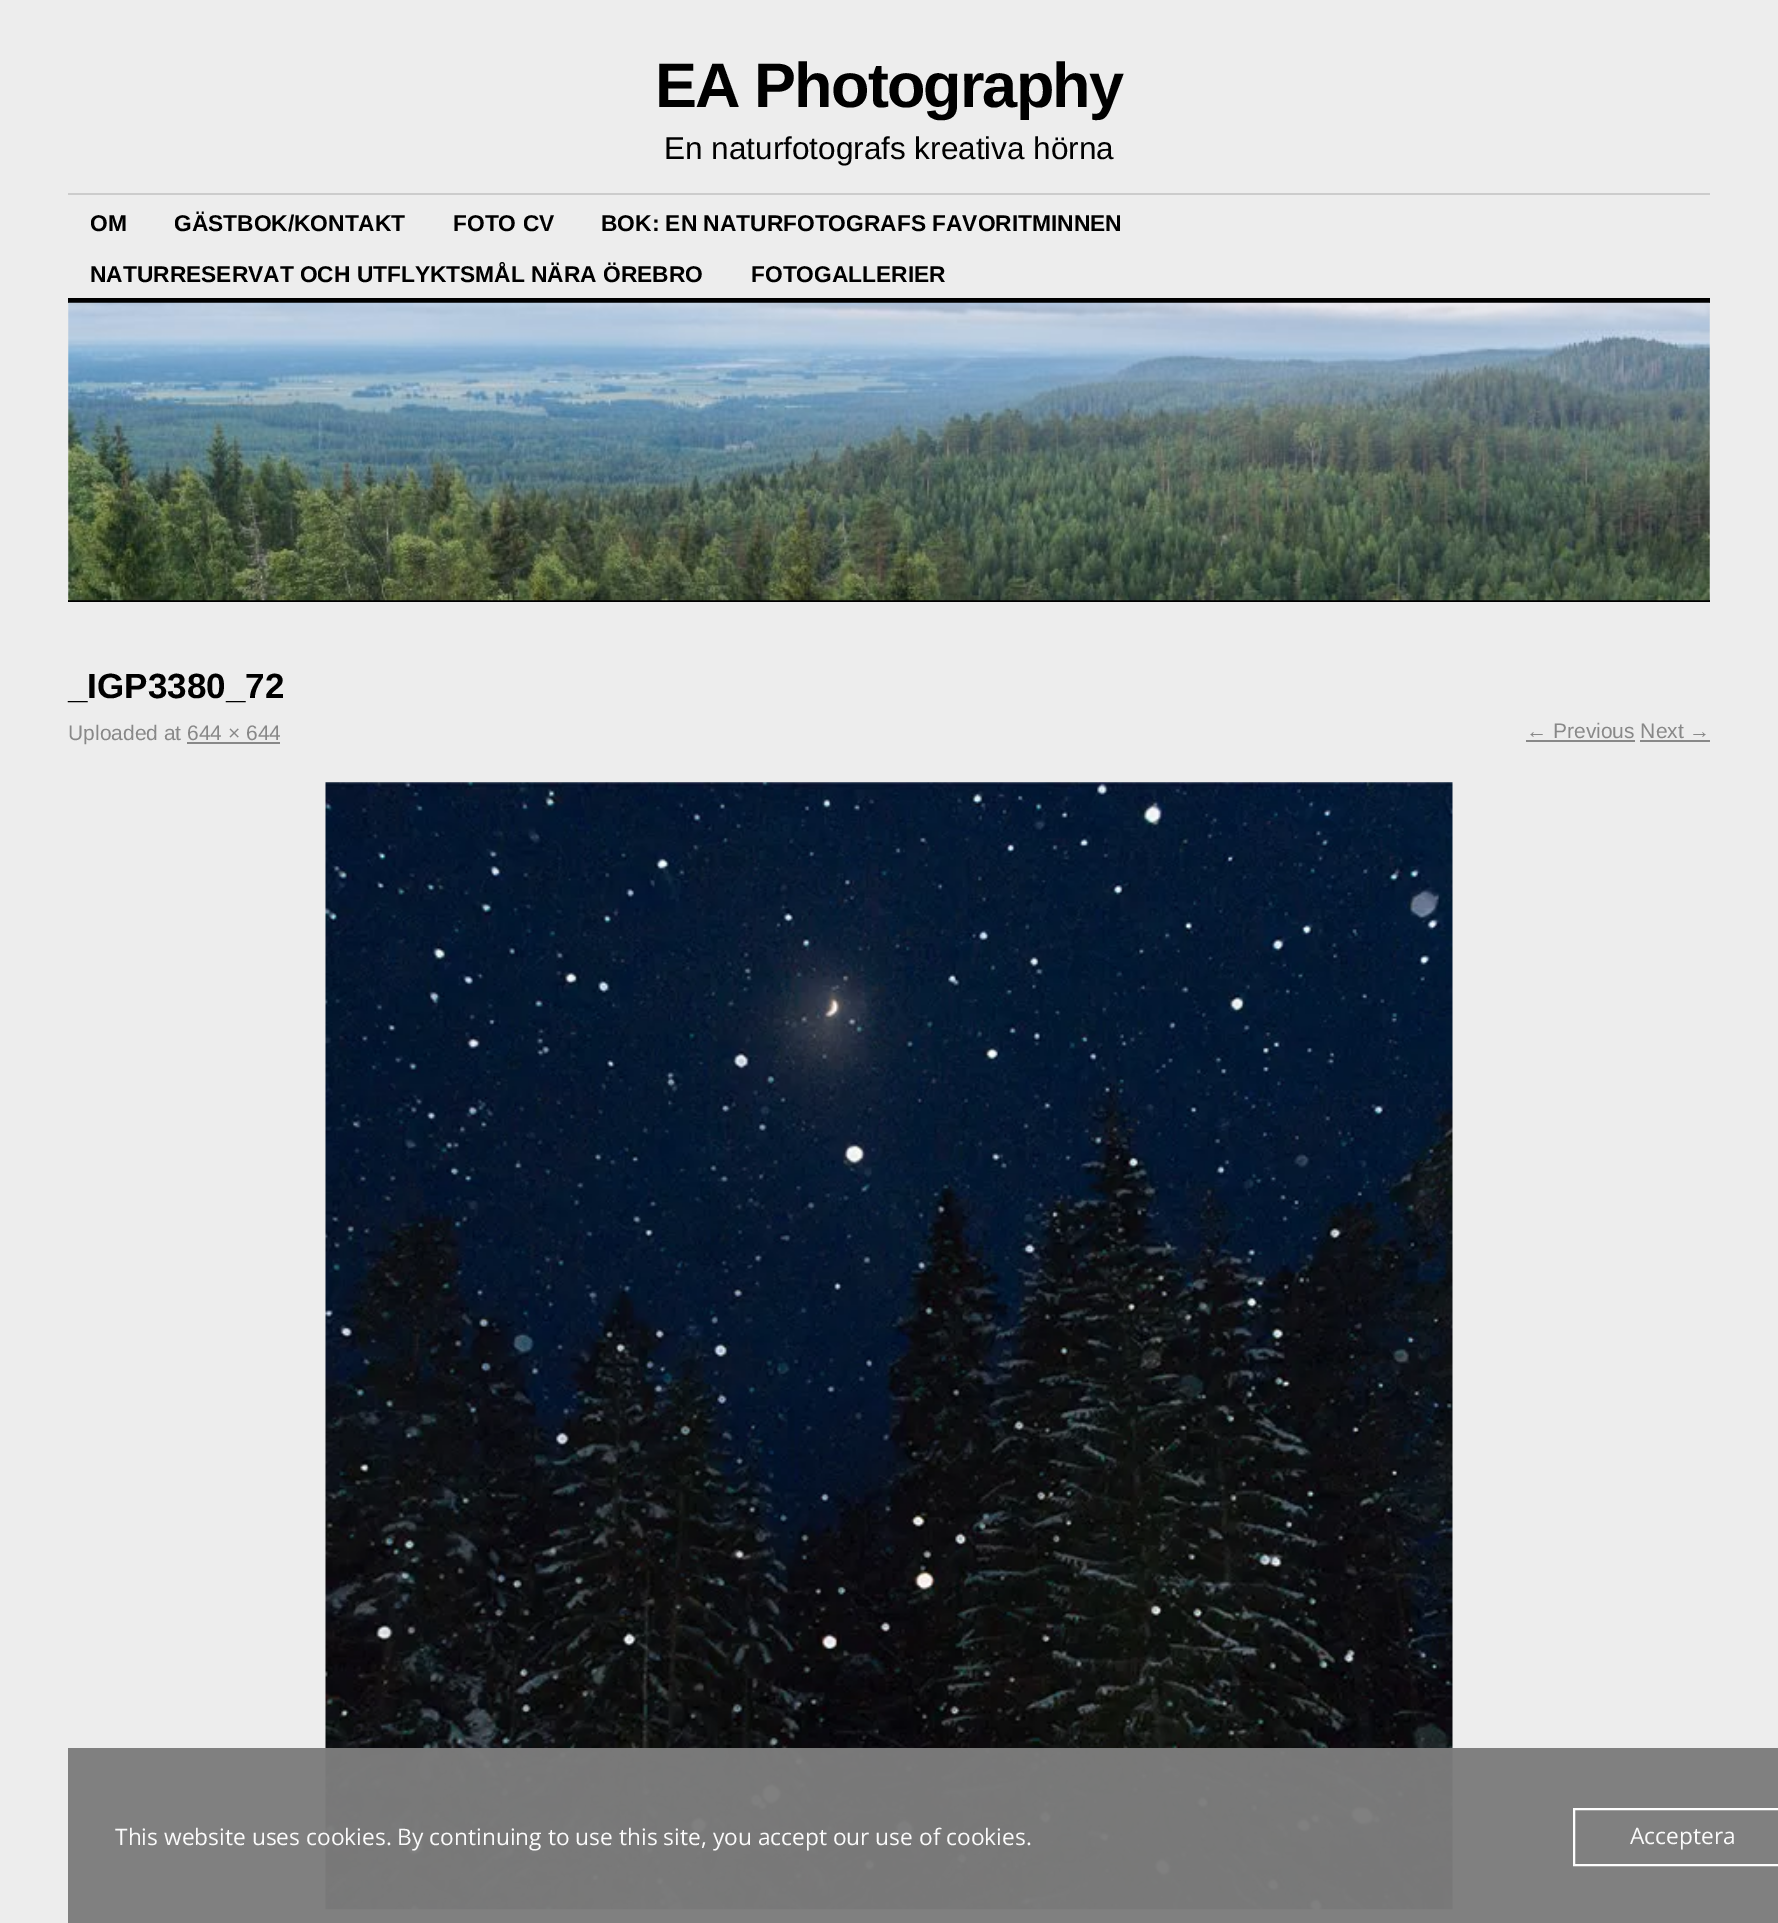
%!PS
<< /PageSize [1778 1923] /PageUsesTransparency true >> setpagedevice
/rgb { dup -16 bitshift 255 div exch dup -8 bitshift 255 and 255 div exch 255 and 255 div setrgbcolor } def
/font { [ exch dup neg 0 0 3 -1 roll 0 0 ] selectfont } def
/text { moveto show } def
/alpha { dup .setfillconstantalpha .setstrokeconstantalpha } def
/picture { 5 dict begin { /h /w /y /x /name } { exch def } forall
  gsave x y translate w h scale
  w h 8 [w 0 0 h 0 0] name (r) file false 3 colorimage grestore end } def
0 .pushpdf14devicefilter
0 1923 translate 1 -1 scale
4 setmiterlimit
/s1 { /LiberationSans-Regular 31.5 font 16#000000 rgb } def
/s2 { /LiberationSans-Bold 22.75 font 16#000000 rgb } def
/s3 { /LiberationSans-Bold 35 font 16#000000 rgb } def
/s4 { /LiberationSans-Regular 21 font 16#888888 rgb } def
/s5 { /OpenSans-Regular 22.75 font 16#FBFBFB rgb } def
16#EDEDED rgb
0 0 1778 1923 rectfill
/LiberationSans-Bold 63 font
16#000000 rgb
655 107 moveto -1.9 0 (EA Photography) ashow
s1
(En naturfotografs kreativa hörna) 664 159 text
16#CCCCCC rgb
68 193 1642 2 rectfill
s2
(OM) 90 231 text
(GÄSTBOK/KONTAKT) 174 231 text
(FOTO CV) 453 231 text
(BOK: EN NATURFOTOGRAFS FAVORITMINNEN) 601 231 text
(NATURRESERVAT OCH UTFLYKTSMÅL NÄRA ÖREBRO) 90 282 text
(FOTOGALLERIER) 751 282 text
68 298 1642 5 rectfill
68 600 1642 2 rectfill
(pic1.raw) 68 302 1642 299 picture
s3
(_IGP3380_72) 68 698 text
s4
(Uploaded at 644 × 644) 68 740 text
187 742 93 2 rectfill
(← Previous Next →) 1526 738 text
1526 740 109 2 rectfill
1640 740 70 2 rectfill
(pic2.raw) 325 782 1128 1128 picture
0.97 alpha
16#7C7C7C rgb
68 1748 1710 175 rectfill
1 alpha
s5
(This website uses cookies. By continuing to use this site, you accept our use of cookies.) 115 1845 text
16#FEFEFE rgb
2 setlinewidth
1574 1809 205 56 rectstroke
s5
(Acceptera) 1630 1844 text
.poppdf14devicefilter showpage
